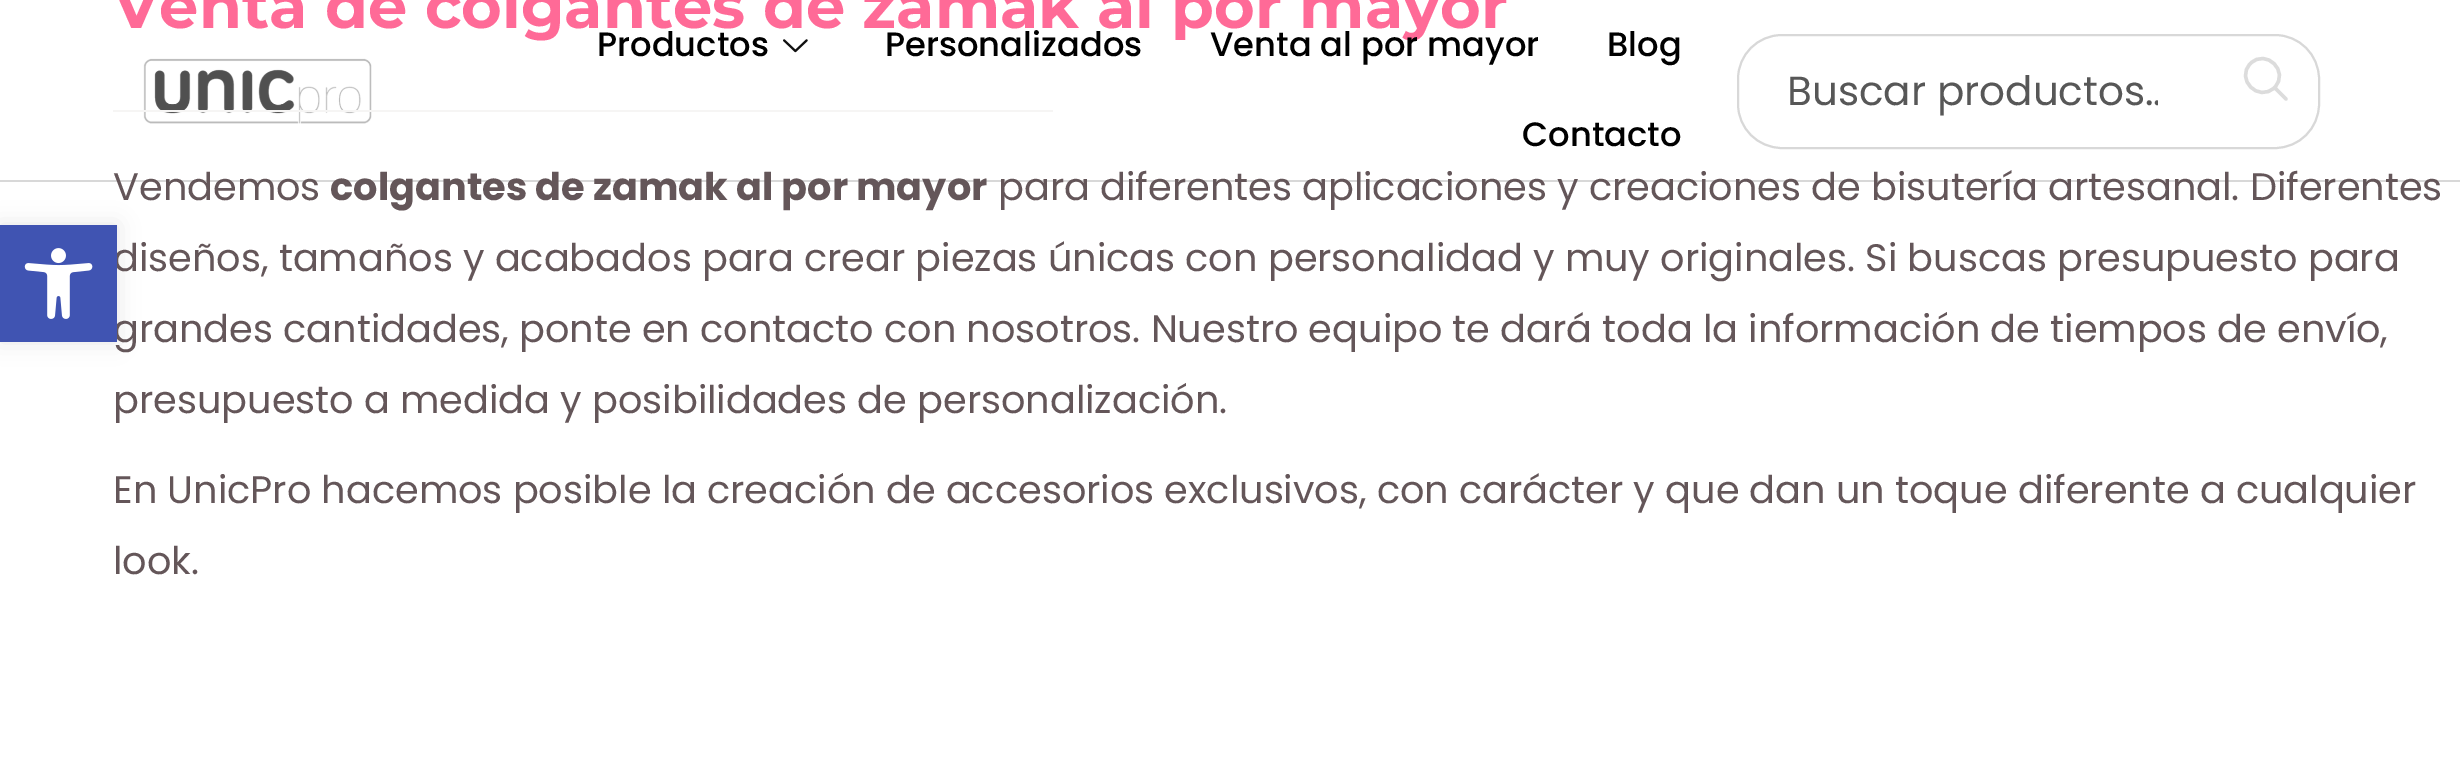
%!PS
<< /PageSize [2460 769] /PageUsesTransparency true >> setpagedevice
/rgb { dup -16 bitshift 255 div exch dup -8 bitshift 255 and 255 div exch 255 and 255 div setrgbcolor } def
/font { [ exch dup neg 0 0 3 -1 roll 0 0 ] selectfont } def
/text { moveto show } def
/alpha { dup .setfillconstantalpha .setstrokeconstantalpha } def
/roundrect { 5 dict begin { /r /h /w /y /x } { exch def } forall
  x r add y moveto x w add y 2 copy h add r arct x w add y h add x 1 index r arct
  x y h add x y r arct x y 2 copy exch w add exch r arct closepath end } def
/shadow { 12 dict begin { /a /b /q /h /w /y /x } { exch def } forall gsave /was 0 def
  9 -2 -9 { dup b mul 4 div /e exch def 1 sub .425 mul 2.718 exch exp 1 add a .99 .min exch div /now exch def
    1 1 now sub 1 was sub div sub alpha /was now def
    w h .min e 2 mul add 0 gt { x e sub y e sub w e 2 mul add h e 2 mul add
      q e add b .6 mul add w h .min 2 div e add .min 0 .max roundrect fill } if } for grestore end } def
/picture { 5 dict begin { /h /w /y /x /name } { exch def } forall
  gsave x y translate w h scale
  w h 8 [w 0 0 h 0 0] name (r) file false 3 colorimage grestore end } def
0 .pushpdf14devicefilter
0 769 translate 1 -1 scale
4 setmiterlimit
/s1 { /Poppins-Regular 38.25 font 16#645659 rgb } def
/s2 { /Poppins-Medium 33.75 font 16#000000 rgb } def
/s3 { /Montserrat-Bold 62.2 font 16#FF6A97 rgb } def
/s4 { /Poppins-Bold 38.25 font 16#645659 rgb } def
/s5 { /Poppins-Regular 40.5 font 16#575757 rgb } def
16#FFFFFF rgb
0 0 2460 769 rectfill
16#000000 rgb
0 225 117 117 0 11 0.1 shadow
s1
(diseños, tamaños y acabados para crear piezas únicas con personalidad y muy originales. Si buscas presupuesto para) 113 271 text
(grandes cantidades, ponte en contacto con nosotros. Nuestro equipo te dará toda la información de tiempos de envío,) 113 342 text
16#4054B2 rgb
0 225 117 117 rectfill
(pic1.raw) 24 248 69 71 picture
(pic3.raw) 783 39 25 14 picture
s2
(Personalizados) 885 56 text
s3
(Venta de colgantes de zamak al por mayor) 113 28 text
(pic2.raw) 143 58 229 66 picture
16#F6F5F4 rgb
113 110 940 2 rectfill
16#D8D8D8 rgb
0 180 2460 2 rectfill
s1
(Vendemos) 113 200 text
s4
(colgantes de zamak al por mayor) 330 200 text
s1
(para diferentes aplicaciones y creaciones de bisutería artesanal. Diferentes) 998 200 text
(presupuesto a medida y posibilidades de personalización.) 113 413 text
(En UnicPro hacemos posible la creación de accesorios exclusivos, con carácter y que dan un toque diferente a cualquier) 113 503 text
(look.) 113 574 text
s2
(Productos) 597 56 text
(Venta al por mayor) 1210 56 text
(Blog) 1607 56 text
(Contacto) 1522 146 text
16#D8D8D8 rgb
2 setlinewidth
1738 35 581 113 44 roundrect stroke
gsave
1787 61 371 61 rectclip
s5
(Buscar productos..) 1787 105 text
grestore
16#DCDCDC rgb
3.4 setlinewidth
1 setlinecap
1 setlinejoin
2286 99 moveto 2274.5 87.5 lineto 2274.5 87.5 moveto 2290 71.5 2266 48 2250.5 63.5 curveto 2235 79 2258.5 103 2274.5 87.5 curveto closepath stroke
.poppdf14devicefilter showpage
